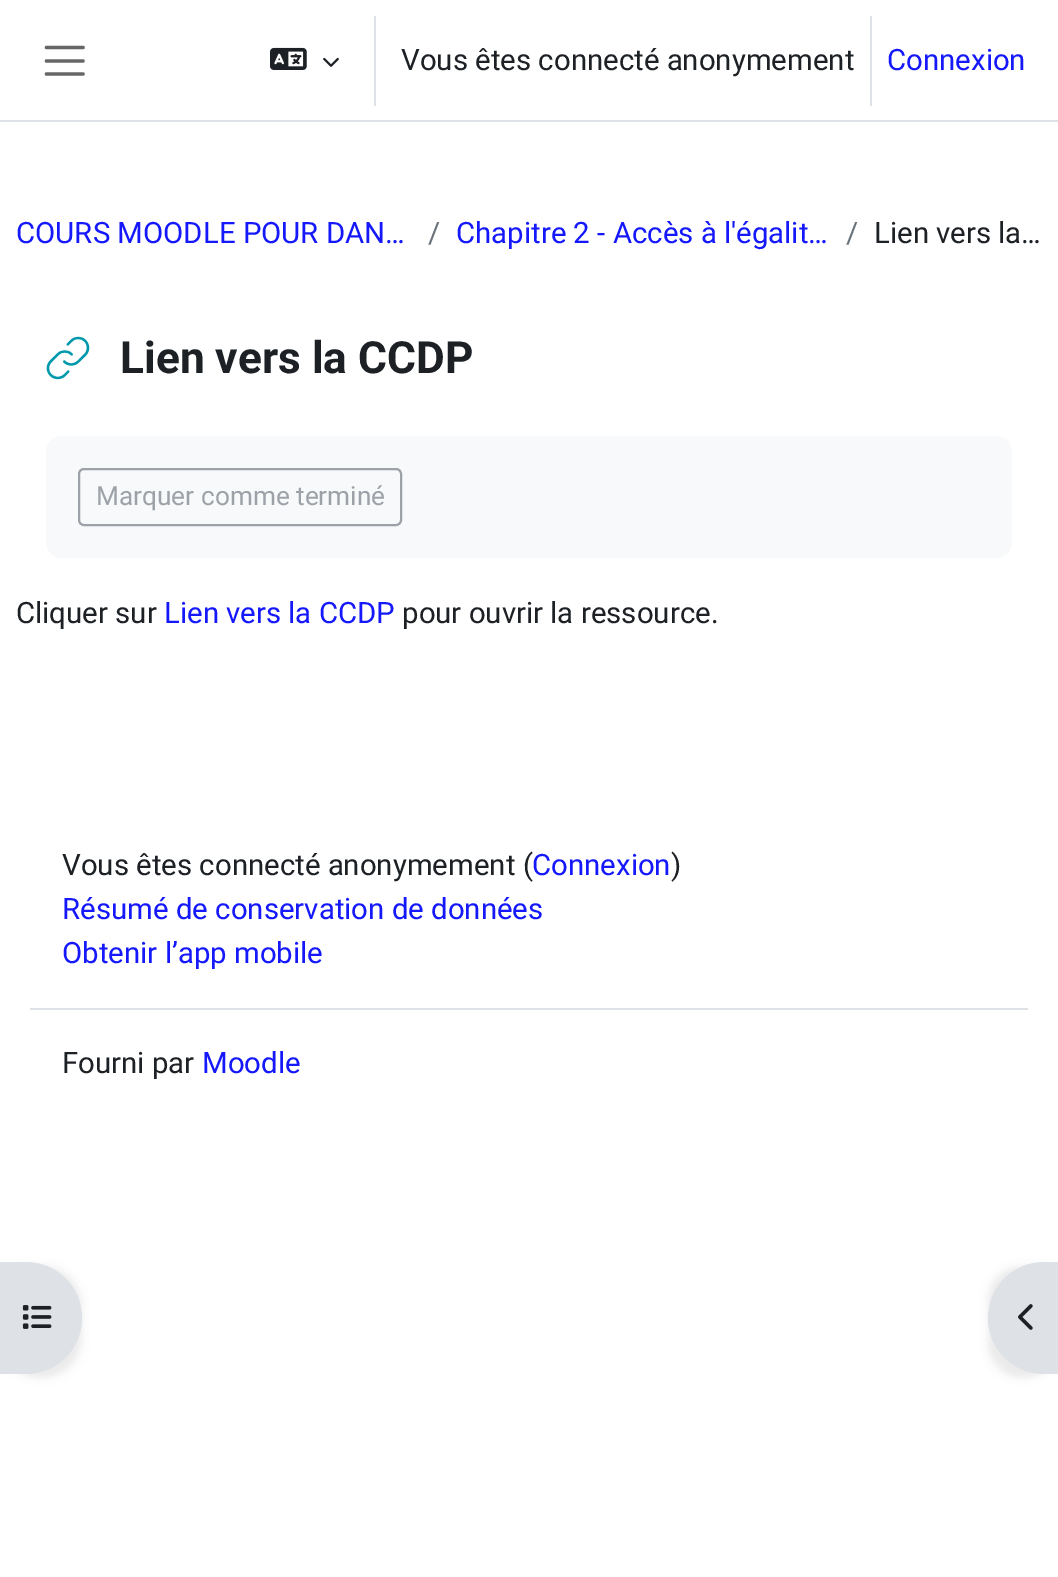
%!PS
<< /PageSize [1058 1577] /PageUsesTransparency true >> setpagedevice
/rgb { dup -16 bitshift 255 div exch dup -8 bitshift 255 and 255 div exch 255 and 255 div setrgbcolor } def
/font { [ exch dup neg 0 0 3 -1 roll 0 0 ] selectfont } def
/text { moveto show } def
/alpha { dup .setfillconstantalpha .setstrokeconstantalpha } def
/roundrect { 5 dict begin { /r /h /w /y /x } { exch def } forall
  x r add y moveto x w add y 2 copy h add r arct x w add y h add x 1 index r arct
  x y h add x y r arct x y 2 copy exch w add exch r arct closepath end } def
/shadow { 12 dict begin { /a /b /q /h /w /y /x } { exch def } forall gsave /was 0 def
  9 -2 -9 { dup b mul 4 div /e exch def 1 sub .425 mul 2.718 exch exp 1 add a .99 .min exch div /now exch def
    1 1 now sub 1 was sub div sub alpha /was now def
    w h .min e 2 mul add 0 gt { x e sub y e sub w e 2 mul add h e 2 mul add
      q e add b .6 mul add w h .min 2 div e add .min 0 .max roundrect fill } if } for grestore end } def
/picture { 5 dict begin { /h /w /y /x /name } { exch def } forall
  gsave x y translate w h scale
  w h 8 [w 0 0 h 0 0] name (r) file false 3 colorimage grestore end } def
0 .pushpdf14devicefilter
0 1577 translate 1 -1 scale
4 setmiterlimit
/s1 { /Roboto-Regular 29.4 font 16#1D2125 rgb } def
/s2 { /Roboto-Regular 29.4 font 16#1418FA rgb } def
/s3 { /Roboto-Regular 29.4 font 16#6A737B rgb } def
/s4 { /Roboto-Bold 44.25 font 16#1D2125 rgb } def
/s5 { /Roboto-Regular 26.25 font 16#9CA2A7 rgb } def
16#FFFFFF rgb
0 0 1058 1577 rectfill
16#DEE2E6 rgb
0 120 1058 2 rectfill
16#666666 rgb
3.3 setlinewidth
1 setlinecap
46.5 47.5 moveto 83 47.5 lineto 46.5 61 moveto 83 61 lineto 46.5 74 moveto 83 74 lineto stroke
(pic1.raw) 270 47 37 23 picture
(pic2.raw) 323 57 16 10 picture
16#DEE2E6 rgb
374 16 2 90 rectfill
s1
(Vous êtes connecté anonymement) 401 70 text
16#DEE2E6 rgb
870 16 2 90 rectfill
s2
(Connexion) 887 70 text
(COURS MOODLE POUR DAN…) 16 243 text
s3
(/) 428 243 text
s2
(Chapitre 2 - Accès à l'égalit…) 456 243 text
s3
(/) 846 243 text
s1
(Lien vers la…) 874 243 text
(pic3.raw) 46 336 44 44 picture
s4
(Lien vers la CCDP) 120 373 text
16#F8F9FA rgb
46 436 966 122 16 roundrect fill
16#9CA2A7 rgb
2 setlinewidth
0 setlinecap
79 469 322 56 5 roundrect stroke
s5
(Marquer comme terminé) 96 505 text
s1
(Cliquer sur) 16 623 text
s2
(Lien vers la CCDP) 164 623 text
s1
(pour ouvrir la ressource.) 402 623 text
16#000000 rgb
0 1266 82 112 56 4 0.07 shadow
16#DEE2E6 rgb
0 1262 moveto 26 1262 lineto 57 1262 82 1287 82 1318 curveto 82 1349 57 1374 26 1374 curveto 0 1374 lineto closepath fill
(pic4.raw) 22 1305 30 24 picture
16#000000 rgb
988 1266 70 112 56 4 0.07 shadow
16#DEE2E6 rgb
1044 1262 moveto 1058 1262 lineto 1058 1374 lineto 1044 1374 lineto 1013 1374 988 1349 988 1318 curveto 988 1287 1013 1262 1044 1262 curveto closepath fill
(pic5.raw) 1018 1304 15 26 picture
30 1008 998 2 rectfill
s1
(Vous êtes connecté anonymement \() 62 875 text
s2
(Connexion) 532 875 text
s1
(\)) 671 875 text
s2
(Résumé de conservation de données) 62 919 text
(Obtenir l’app mobile) 62 963 text
s1
(Fourni par) 62 1073 text
s2
(Moodle) 202 1073 text
.poppdf14devicefilter showpage
